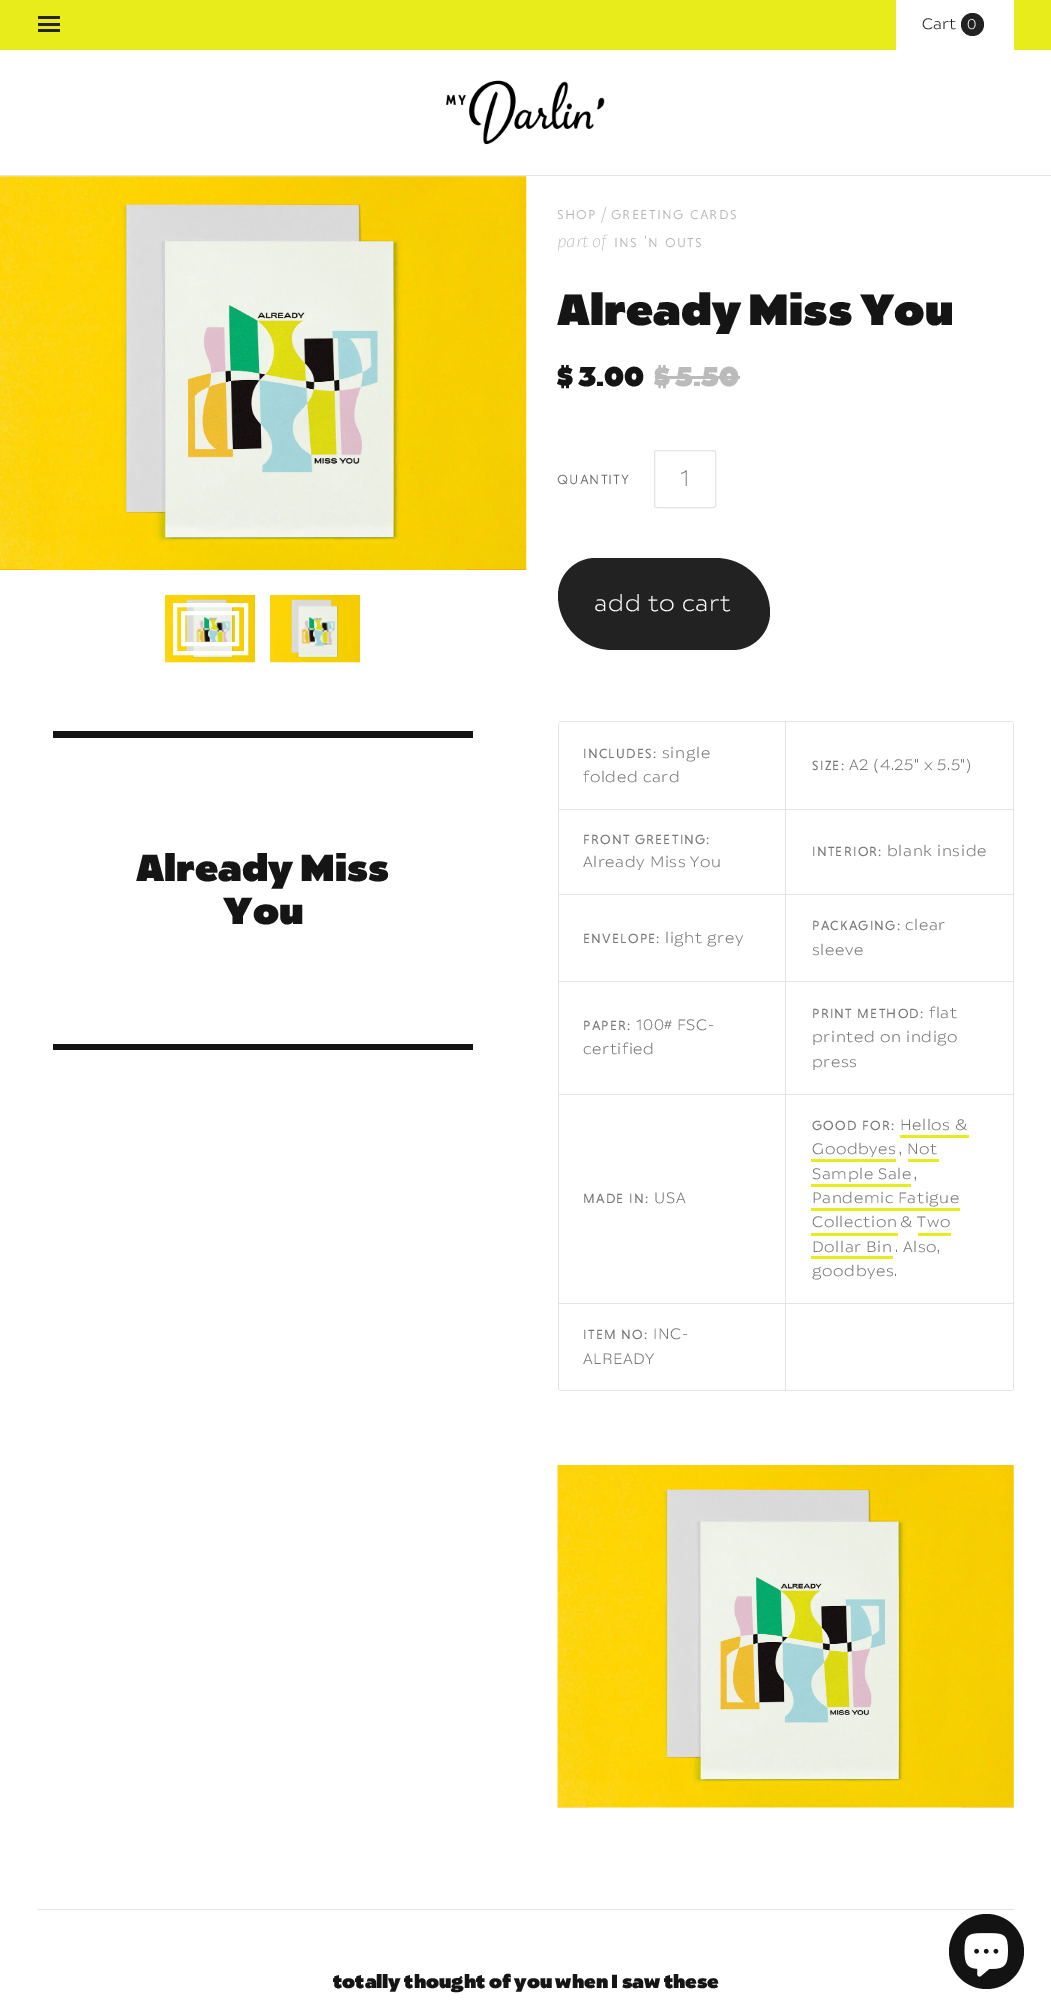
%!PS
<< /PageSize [1051 2015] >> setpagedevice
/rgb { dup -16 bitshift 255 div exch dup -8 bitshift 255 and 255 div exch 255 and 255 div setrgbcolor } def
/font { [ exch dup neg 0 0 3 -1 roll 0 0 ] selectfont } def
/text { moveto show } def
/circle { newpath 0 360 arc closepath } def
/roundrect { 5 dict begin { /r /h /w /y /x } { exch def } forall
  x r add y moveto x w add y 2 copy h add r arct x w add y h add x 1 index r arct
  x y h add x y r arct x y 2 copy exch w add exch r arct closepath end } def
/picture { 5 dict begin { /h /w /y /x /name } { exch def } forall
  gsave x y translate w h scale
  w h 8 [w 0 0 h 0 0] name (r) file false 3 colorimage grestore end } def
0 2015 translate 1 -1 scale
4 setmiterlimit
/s1 { /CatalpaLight-Light 15 font 16#242424 rgb } def
/s2 { /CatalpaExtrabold-ExtraBold 37.5 font 16#151515 rgb } def
/s3 { /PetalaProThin-ThinItalic 17 font 16#B5B5B5 rgb } def
/s4 { /CatalpaExtrabold-ExtraBold 43.75 font 16#151515 rgb } def
/s5 { /CatalpaExtrabold-ExtraBold 27 font 16#151515 rgb } def
/s6 { /CatalpaExtrabold-ExtraBold 27 font 16#BBBBBB rgb } def
/s7 { /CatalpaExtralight-ExtraLight 22.5 font 16#787878 rgb } def
/s8 { /CatalpaExtrabold-ExtraBold 18.75 font 16#151515 rgb } def
16#FFFFFF rgb
0 0 1051 2015 rectfill
16#E9EC1B rgb
0 0 1051 50 rectfill
16#242424 rgb
38 23 22 3 rectfill
38 16 22 3 rectfill
38 29 22 3 rectfill
16#FFFFFF rgb
896 0 118 50 rectfill
s1
(Cart) 922 29 text
16#222222 rgb
972.5 24.5 11.5 circle fill
/CatalpaLight-Light 14 font
16#FFFFFF rgb
967 29 moveto 1.25 0 (0) ashow
16#E5E4E4 rgb
0 175 1051 1 rectfill
(pic1.raw) 446 80 159 65 picture
(pic2.raw) 0 176 527 394 picture
(pic3.raw) 165 595 90 68 picture
16#FFFFFF rgb
4 setlinewidth
175 605 71 48 rectstroke
183 613 54 31 rectstroke
(pic4.raw) 270 595 90 68 picture
16#131313 rgb
53 731 420 7 rectfill
53 1044 420 6 rectfill
s2
(Already Miss) 136 881 text
(You) 223 924 text
/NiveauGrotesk-Light 17 font
16#B5B5B5 rgb
557 219 moveto 1.25 0 (shop) ashow
s3
(/) 601 219 text
/NiveauGrotesk-Light 17 font
611 219 moveto 1.25 0 (greeting cards) ashow
s3
(part of) 557 247 text
/NiveauGrotesk-Light 17 font
614 247 moveto 1.25 0 (ins 'n outs) ashow
s4
(Already Miss You) 557 325 text
s5
($ 3.00) 557 386 text
s6
($ 5.50) 654 386 text
655 376 85 3 rectfill
/NiveauGrotesk-Light 17.5 font
16#6A6A6A rgb
557 484 moveto 1 0 (quantity) ashow
16#E5E4E4 rgb
1 setlinewidth
654.5 450.5 61 57 2 roundrect stroke
s7
(1) 680 486 text
16#222222 rgb
595.5 558 moveto 715.5 558 lineto 745.5 558 770 582.5 770 612.5 curveto 770 633 753 650 732.5 650 curveto 612.5 650 lineto 582.5 650 558 625.5 558 595.5 curveto 558 575 575 558 595.5 558 curveto closepath fill
/CatalpaLight-Light 22.5 font
16#FFFFFF rgb
594 611 moveto 0.6 0 (add to cart) ashow
16#E5E4E4 rgb
1013 723 1 667 rectfill
559 1390 454 1 rectfill
558 723 1 667 rectfill
559 721 454 1 rectfill
/NiveauGrotesk-Regular 13.5 font
16#787878 rgb
583 758 moveto 1.25 0 (INCLUDES:) ashow
/CatalpaLight-Light 15 font
662 758 moveto 0.6 0 (single) ashow
583 782 moveto 0.6 0 (folded card) ashow
16#E5E4E4 rgb
785 721 1 88 rectfill
/NiveauGrotesk-Regular 13.5 font
16#787878 rgb
812 770 moveto 1.25 0 (SIZE:) ashow
/CatalpaLight-Light 15 font
849 770 moveto 0.6 0 (A2 \(4.25" x 5.5"\)) ashow
16#E5E4E4 rgb
559 809 454 1 rectfill
/NiveauGrotesk-Regular 13.5 font
16#787878 rgb
583 844 moveto 1.25 0 (FRONT GREETING:) ashow
/CatalpaLight-Light 15 font
583 867 moveto 0.6 0 (Already Miss You) ashow
16#E5E4E4 rgb
785 809 1 85 rectfill
/NiveauGrotesk-Regular 13.5 font
16#787878 rgb
812 856 moveto 1.25 0 (INTERIOR:) ashow
/CatalpaLight-Light 15 font
887 856 moveto 0.6 0 (blank inside) ashow
16#E5E4E4 rgb
559 894 454 1 rectfill
/NiveauGrotesk-Regular 13.5 font
16#787878 rgb
583 943 moveto 1.25 0 (ENVELOPE:) ashow
/CatalpaLight-Light 15 font
665 943 moveto 0.6 0 (light grey) ashow
16#E5E4E4 rgb
785 894 1 87 rectfill
/NiveauGrotesk-Regular 13.5 font
16#787878 rgb
812 930 moveto 1.25 0 (PACKAGING:) ashow
/CatalpaLight-Light 15 font
905 930 moveto 0.6 0 (clear) ashow
812 955 moveto 0.6 0 (sleeve) ashow
16#E5E4E4 rgb
559 981 454 1 rectfill
/NiveauGrotesk-Regular 13.5 font
16#787878 rgb
583 1030 moveto 1.25 0 (PAPER:) ashow
/CatalpaLight-Light 15 font
636 1030 moveto 0.6 0 (100# FSC-) ashow
583 1054 moveto 0.6 0 (certified) ashow
16#E5E4E4 rgb
785 981 1 113 rectfill
/NiveauGrotesk-Regular 13.5 font
16#787878 rgb
812 1018 moveto 1.25 0 (PRINT METHOD:) ashow
/CatalpaLight-Light 15 font
929 1018 moveto 0.6 0 (flat) ashow
812 1042 moveto 0.6 0 (printed on indigo) ashow
812 1067 moveto 0.6 0 (press) ashow
16#E5E4E4 rgb
559 1094 454 1 rectfill
/NiveauGrotesk-Regular 13.5 font
16#787878 rgb
583 1203 moveto 1.25 0 (MADE IN:) ashow
/CatalpaLight-Light 15 font
654 1203 moveto 0.6 0 (USA) ashow
16#E5E4E4 rgb
785 1094 1 209 rectfill
/NiveauGrotesk-Regular 13.5 font
16#787878 rgb
812 1130 moveto 1.25 0 (GOOD FOR:) ashow
/CatalpaLight-Light 15 font
900 1130 moveto 0.6 0 (Hellos &) ashow
16#E9EC1B rgb
900 1135 69 3 rectfill
16#787878 rgb
812 1154 moveto 0.6 0 (Goodbyes) ashow
16#E9EC1B rgb
811 1159 85 3 rectfill
16#787878 rgb
899 1154 moveto 0.6 0 (, Not) ashow
16#E9EC1B rgb
908 1159 31 3 rectfill
16#787878 rgb
812 1179 moveto 0.6 0 (Sample Sale) ashow
914 1179 moveto 0.6 0 (,) ashow
16#E9EC1B rgb
811 1184 100 3 rectfill
16#787878 rgb
812 1203 moveto 0.6 0 (Pandemic Fatigue) ashow
16#E9EC1B rgb
811 1208 149 3 rectfill
16#787878 rgb
812 1227 moveto 0.6 0 (Collection) ashow
900 1227 moveto 0.6 0 (& Two) ashow
16#E9EC1B rgb
918 1233 33 3 rectfill
16#787878 rgb
812 1252 moveto 0.6 0 (Dollar Bin) ashow
16#E9EC1B rgb
811 1233 87 3 rectfill
811 1256 82 3 rectfill
16#787878 rgb
895 1252 moveto 0.6 0 (. Also,) ashow
812 1276 moveto 0.6 0 (goodbyes.) ashow
16#E5E4E4 rgb
559 1303 454 1 rectfill
/NiveauGrotesk-Regular 13.5 font
16#787878 rgb
583 1339 moveto 1.25 0 (ITEM NO:) ashow
/CatalpaLight-Light 15 font
653 1339 moveto 0.6 0 (INC-) ashow
583 1364 moveto 0.6 0 (ALREADY) ashow
16#E5E4E4 rgb
785 1303 1 87 rectfill
(pic5.raw) 557 1465 457 343 picture
38 1909 976 1 rectfill
s8
(totally thought of you when I saw these) 333 1988 text
16#131313 rgb
986.5 1951.5 37.5 circle fill
(pic6.raw) 964 1933 44 44 picture
showpage
